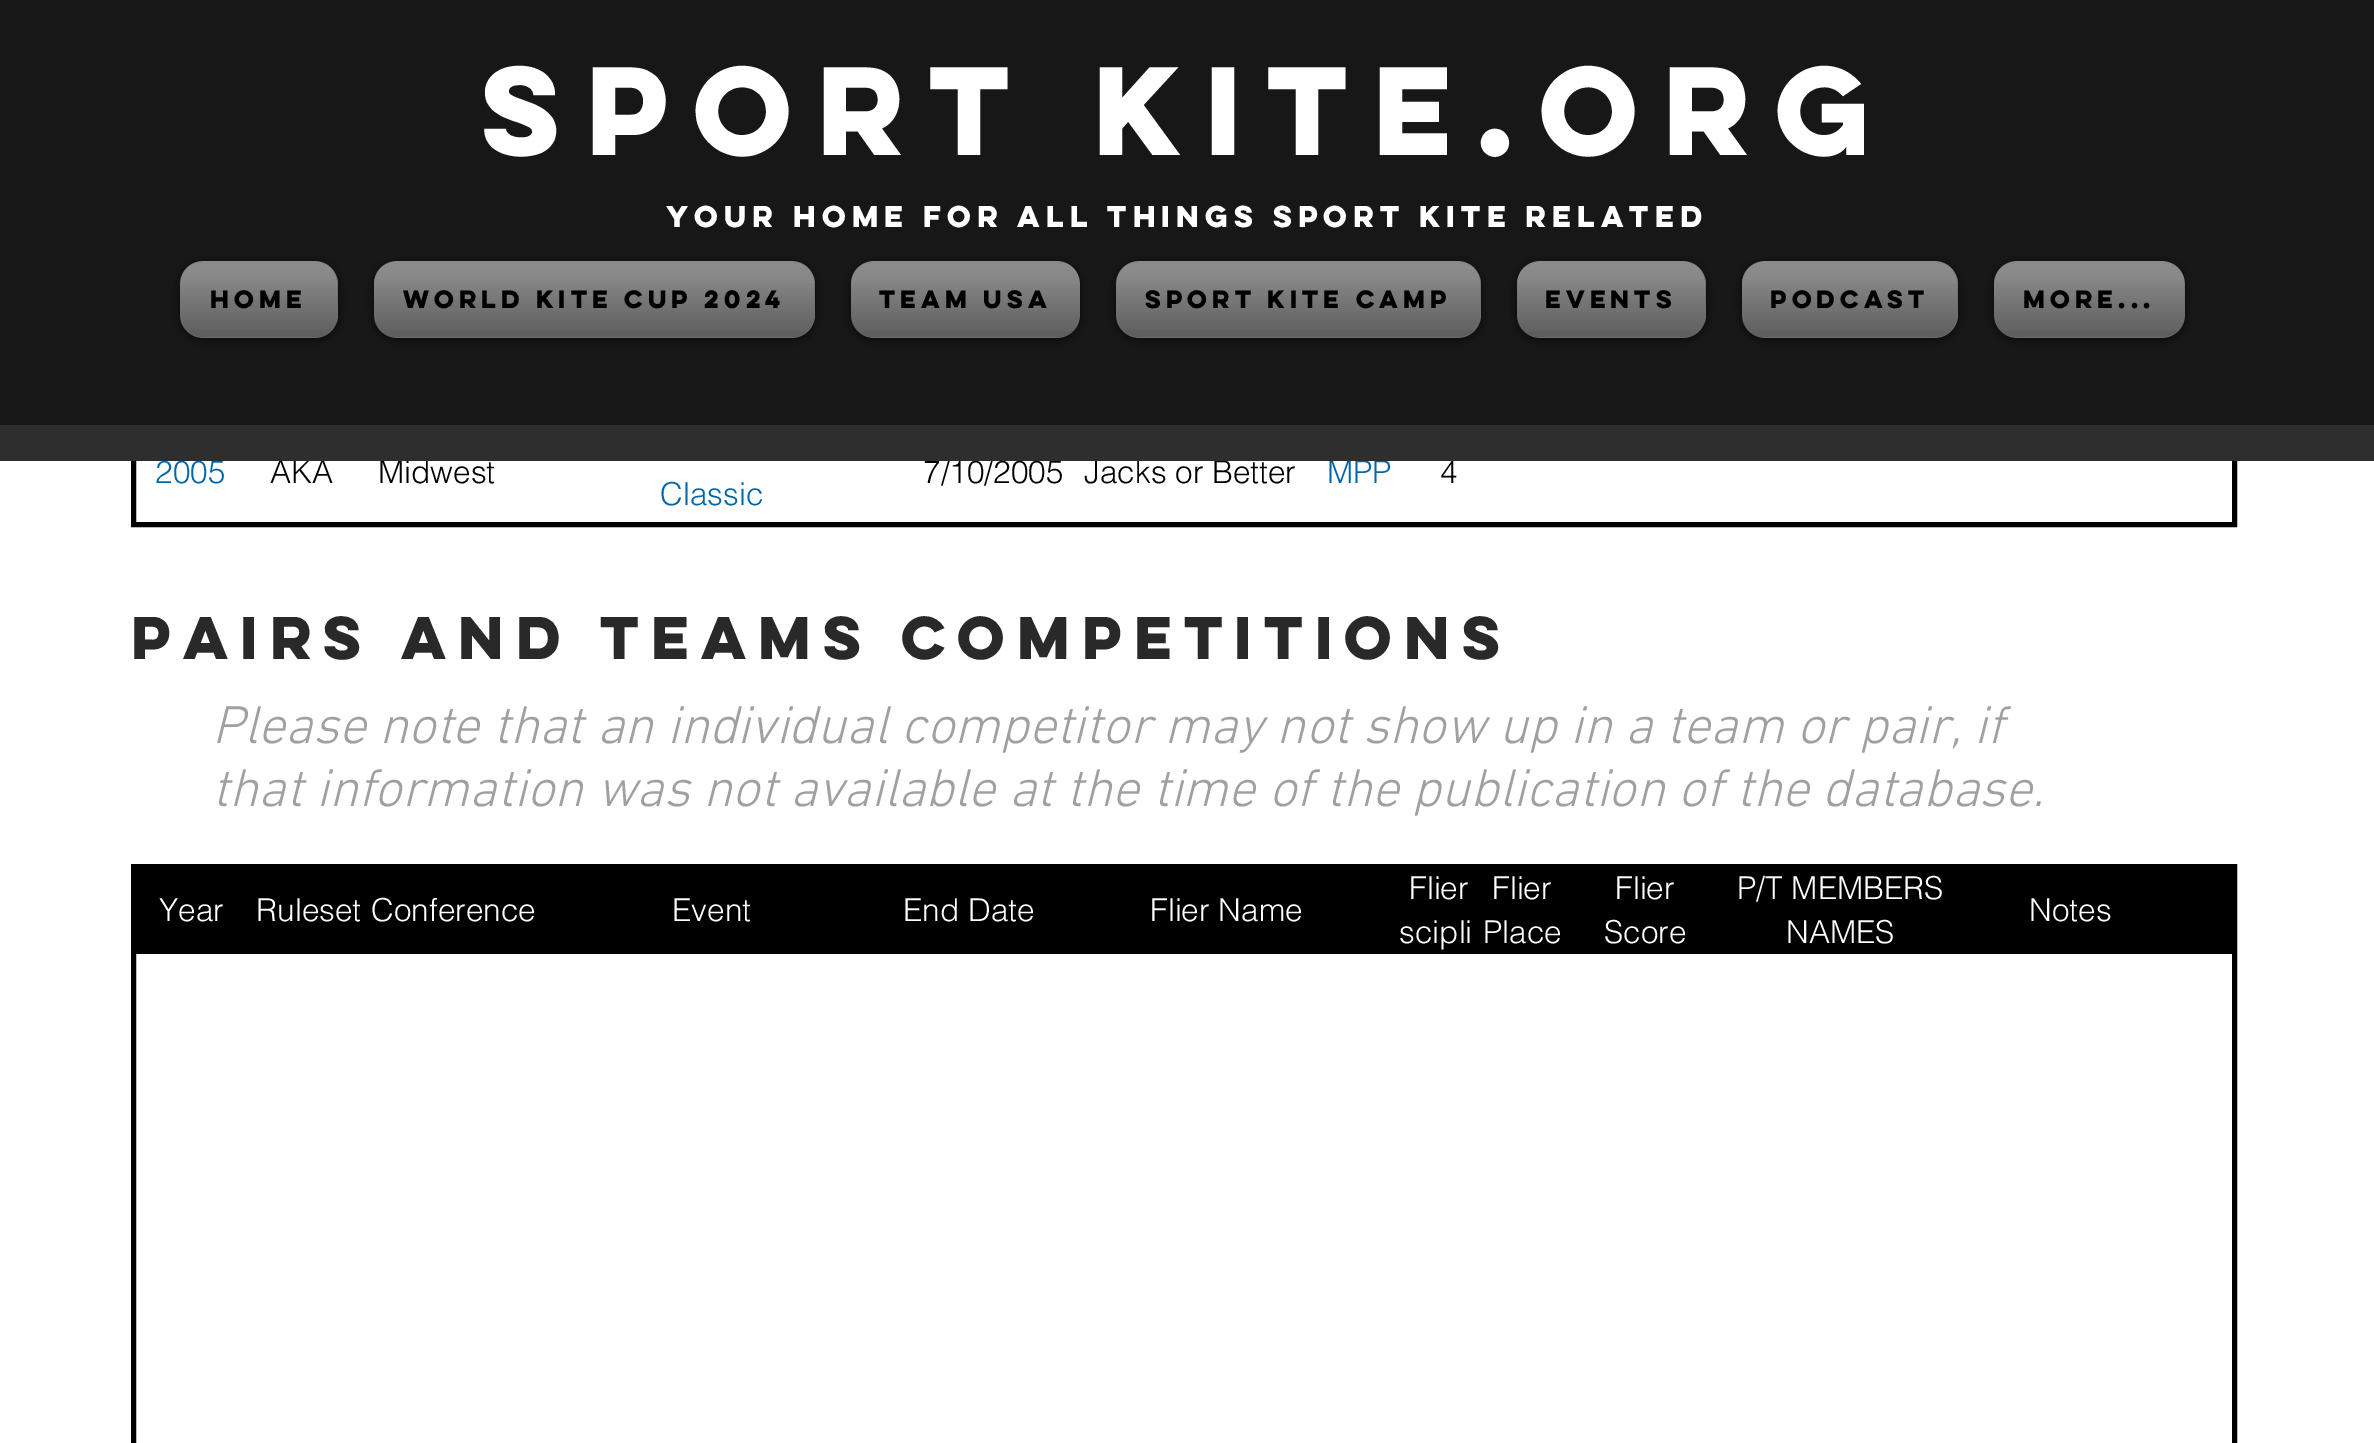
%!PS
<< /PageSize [2374 1443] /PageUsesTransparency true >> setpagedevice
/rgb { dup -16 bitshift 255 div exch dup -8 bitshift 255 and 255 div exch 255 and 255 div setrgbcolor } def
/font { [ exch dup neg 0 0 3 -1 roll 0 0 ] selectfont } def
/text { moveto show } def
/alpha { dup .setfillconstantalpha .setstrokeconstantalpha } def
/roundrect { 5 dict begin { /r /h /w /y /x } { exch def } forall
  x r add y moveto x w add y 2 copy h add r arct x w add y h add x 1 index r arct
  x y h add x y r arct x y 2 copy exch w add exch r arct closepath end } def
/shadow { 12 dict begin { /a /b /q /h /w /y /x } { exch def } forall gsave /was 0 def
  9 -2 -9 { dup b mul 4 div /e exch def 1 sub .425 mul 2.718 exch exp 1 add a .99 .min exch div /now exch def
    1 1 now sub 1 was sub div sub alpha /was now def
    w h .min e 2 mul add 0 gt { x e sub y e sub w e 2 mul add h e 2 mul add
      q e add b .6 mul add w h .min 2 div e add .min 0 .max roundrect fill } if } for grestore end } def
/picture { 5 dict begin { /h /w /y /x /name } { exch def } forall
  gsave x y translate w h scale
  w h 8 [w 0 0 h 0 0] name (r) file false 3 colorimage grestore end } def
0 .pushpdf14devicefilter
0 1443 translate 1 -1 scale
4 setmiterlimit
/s1 { /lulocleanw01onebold-Bold 112.5 font 16#FFFFFF rgb } def
/s2 { /lulocleanw01onebold-Bold 27 font 16#FFFFFF rgb } def
/s3 { /lulocleanw01onebold-Bold 22.5 font 16#000000 rgb } def
/s4 { /helvetica-Light 31.5 font 16#0065A9 rgb } def
/s5 { /helvetica-Light 31.5 font 16#000000 rgb } def
/s6 { /lulocleanw01onebold-Bold 54 font 16#292929 rgb } def
/s7 { /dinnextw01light-LightItalic 54 font 16#A0A09F rgb } def
/s8 { /helvetica-Light 31.5 font 16#FFFFFF rgb } def
16#FFFFFF rgb
0 0 2374 1443 rectfill
16#000000 rgb
5 setlinewidth
133.5 47.5 2101 477 rectstroke
16#171717 rgb
0 0 2374 425 rectfill
s1
(SPORT KITE.org) 481 155 text
s2
(your home for all things sport kite related) 666 227 text
16#000000 rgb
180 263 158 77 23 4.5 0.6 shadow
16#707070 rgb
180 261 158 77 23 roundrect fill
(pic1.raw) 180 261 157 69 picture
(pic2.raw) 180 283 157 55 picture
s3
(HOME) 210 308 text
374 263 441 77 23 4.5 0.6 shadow
16#707070 rgb
374 261 441 77 23 roundrect fill
(pic3.raw) 374 261 440 70 picture
(pic4.raw) 374 283 440 55 picture
s3
(World Kite Cup 2024) 403 308 text
851 263 229 77 23 4.5 0.6 shadow
16#707070 rgb
851 261 229 77 23 roundrect fill
(pic5.raw) 851 261 229 70 picture
(pic6.raw) 851 283 229 55 picture
s3
(TEAM USA) 879 308 text
1116 263 365 77 23 4.5 0.6 shadow
16#707070 rgb
1116 261 365 77 23 roundrect fill
(pic7.raw) 1116 261 364 69 picture
(pic8.raw) 1116 283 364 55 picture
s3
(Sport Kite Camp) 1145 308 text
1517 263 189 77 23 4.5 0.6 shadow
16#707070 rgb
1517 261 189 77 23 roundrect fill
(pic9.raw) 1517 261 188 70 picture
(pic10.raw) 1517 283 188 55 picture
s3
(EVENTS) 1545 308 text
1742 263 216 77 23 4.5 0.6 shadow
16#707070 rgb
1742 261 216 77 23 roundrect fill
(pic11.raw) 1742 261 215 70 picture
(pic12.raw) 1742 283 215 55 picture
s3
(PODCAST) 1770 308 text
1994 263 191 77 23 4.5 0.6 shadow
16#707070 rgb
1994 261 191 77 23 roundrect fill
(pic13.raw) 1994 261 191 70 picture
(pic14.raw) 1994 283 191 55 picture
s3
(More...) 2023 308 text
s4
(2005) 155 483 text
s5
(AKA) 270 483 text
(Midwest) 378 483 text
(7/10/2005) 923 483 text
(Jacks or Better) 1084 483 text
s4
(MPP) 1327 483 text
16#2F2E2E rgb
0 425 2374 36 rectfill
s5
(4) 1440 483 text
s4
(Classic) 660 505 text
s6
(pairs and teams competitions) 131 659 text
s7
(Please note that an individual competitor may not show up in a team or pair, if) 212 743 text
(that information was not available at the time of the publication of the database.) 212 806 text
16#000000 rgb
133.5 866.5 2101 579 rectstroke
136 869 2096 85 rectfill
s8
(Year) 159 921 text
(Ruleset) 256 921 text
(Conference) 371 921 text
(Event) 672 921 text
(End Date) 903 921 text
(Flier Name) 1150 921 text
(Flier) 1409 899 text
(scipli) 1399 943 text
(Flier) 1492 899 text
(Place) 1483 943 text
(Flier) 1615 899 text
(Score) 1604 943 text
(P/T MEMBERS) 1737 899 text
(NAMES) 1786 943 text
(Notes) 2029 921 text
.poppdf14devicefilter showpage
